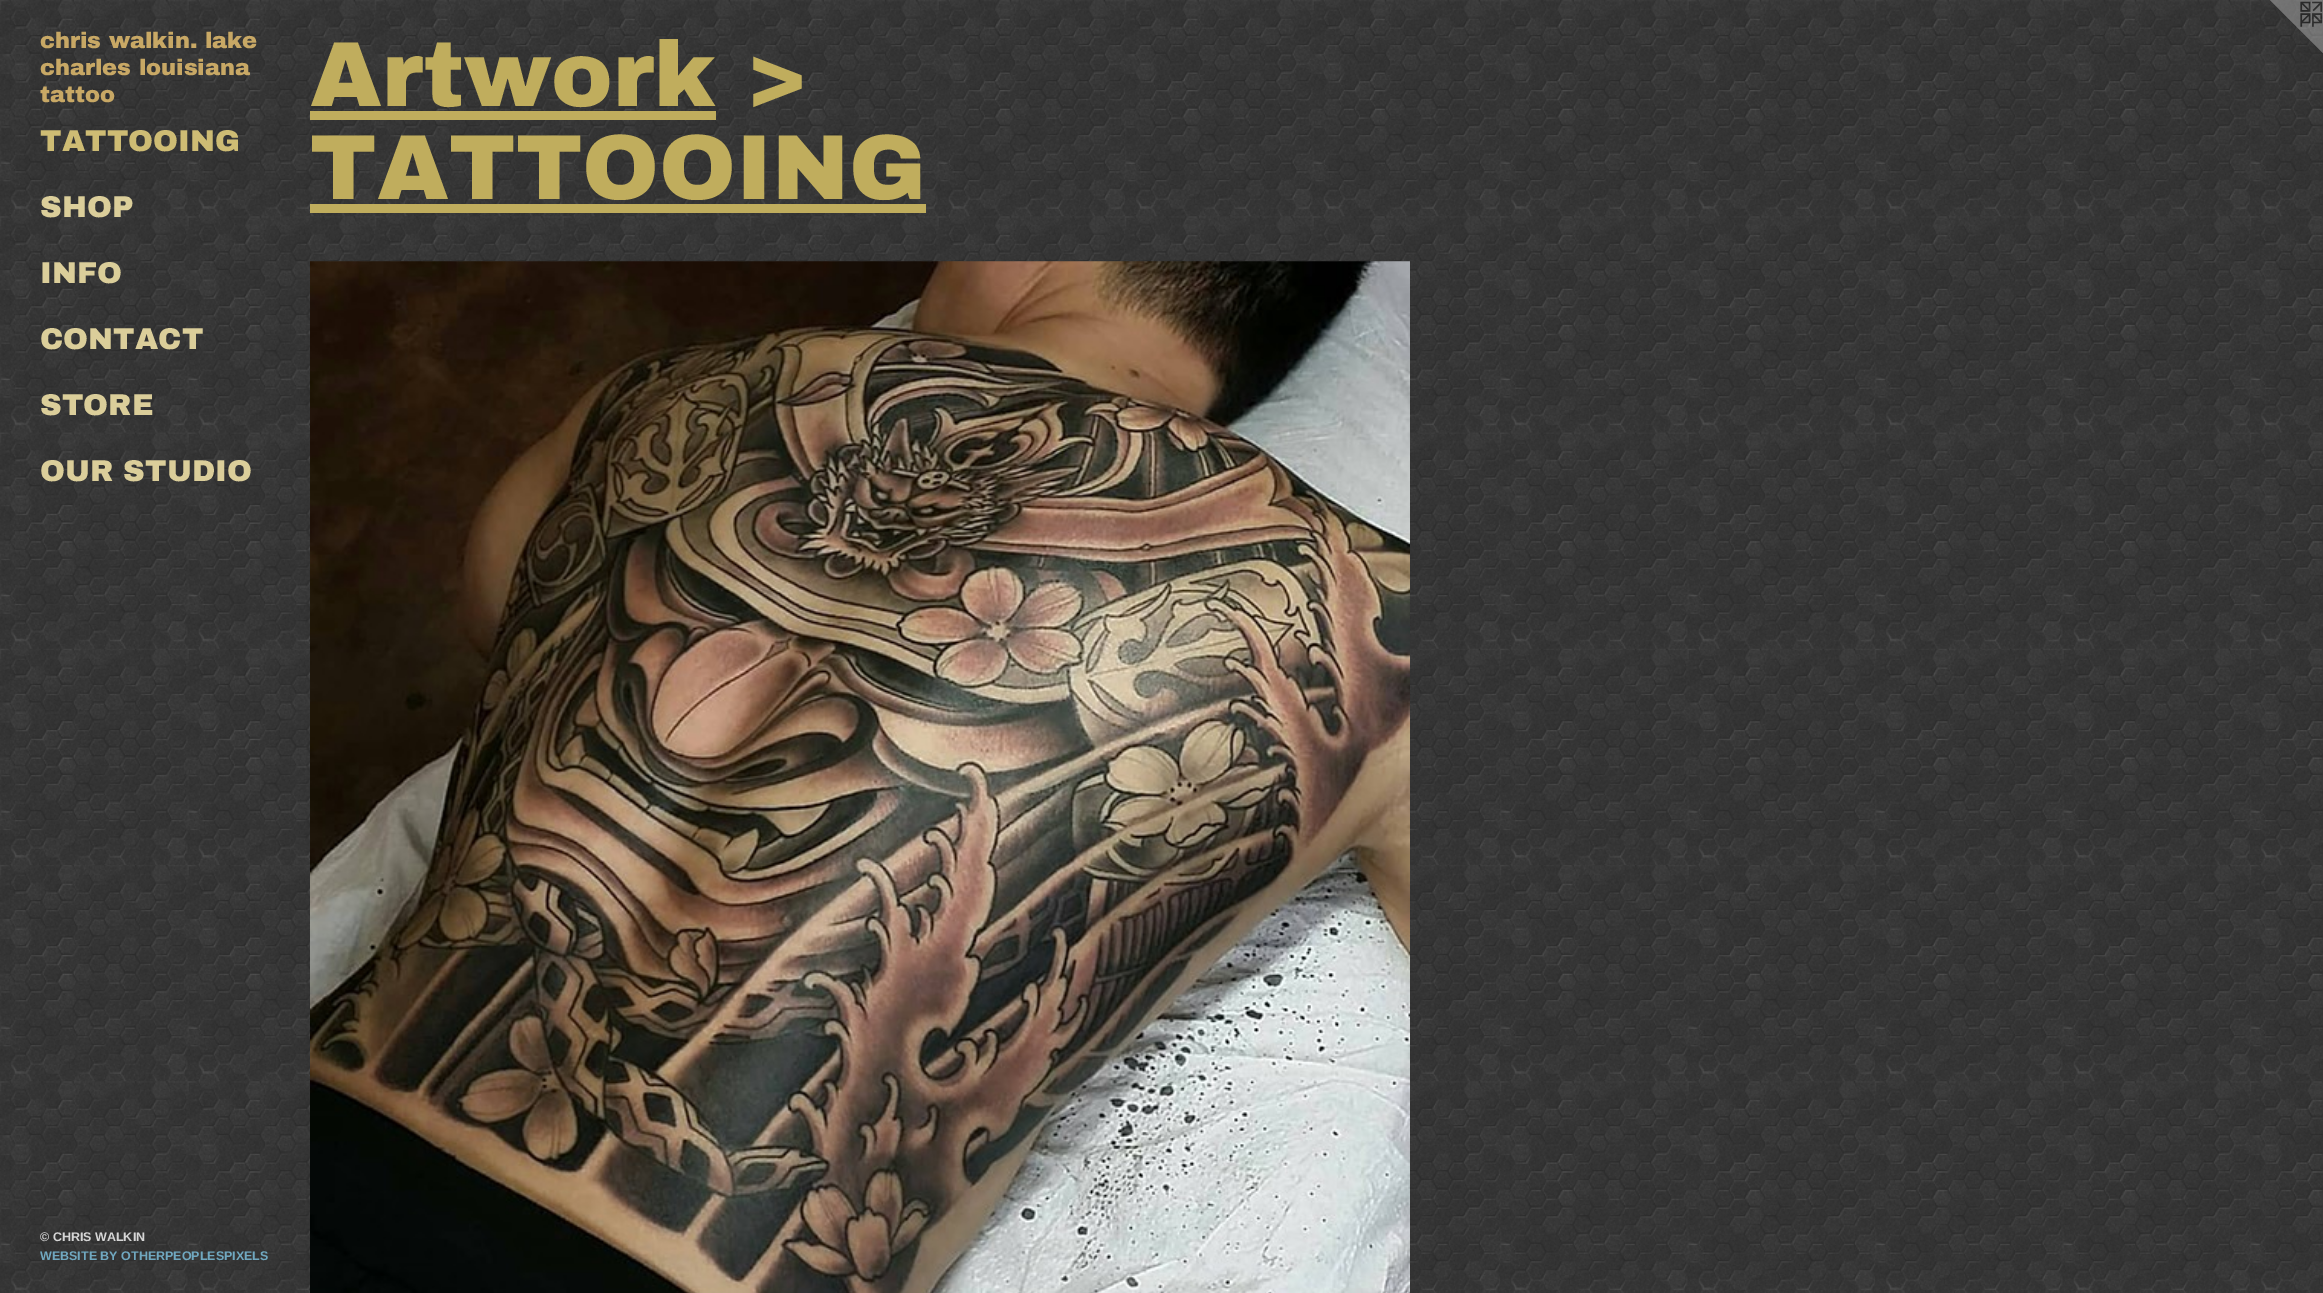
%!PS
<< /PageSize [2323 1293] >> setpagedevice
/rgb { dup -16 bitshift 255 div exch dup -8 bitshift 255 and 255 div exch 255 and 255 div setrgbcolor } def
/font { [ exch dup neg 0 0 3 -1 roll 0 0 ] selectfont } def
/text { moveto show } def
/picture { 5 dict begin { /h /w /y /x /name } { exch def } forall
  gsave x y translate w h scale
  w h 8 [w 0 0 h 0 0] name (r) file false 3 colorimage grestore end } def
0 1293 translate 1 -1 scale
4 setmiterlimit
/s1 { /ArchivoBlack-Black 22.5 font 16#C8A865 rgb } def
/s2 { /ArchivoBlack-Black 30 font 16#CEBC74 rgb } def
/s3 { /ArchivoBlack-Black 30 font 16#DBCE9A rgb } def
/s4 { /LiberationSans-Bold 12.5 font 16#D6D6D6 rgb } def
/s5 { /LiberationSans-Bold 12.5 font 16#70A8C0 rgb } def
/s6 { /ArchivoBlack-Black 92.5 font 16#C0AD5D rgb } def
16#FFFFFF rgb
0 0 2323 1293 rectfill
(pic1.raw) 0 0 2323 1293 picture
s1
(chris walkin. lake) 40 48 text
(charles louisiana) 40 75 text
(tattoo) 40 102 text
s2
(TATTOOING) 40 151 text
s3
(SHOP) 40 217 text
(INFO) 40 283 text
(CONTACT) 40 349 text
(STORE) 40 415 text
(OUR STUDIO) 40 481 text
s4
(© CHRIS WALKIN) 40 1241 text
s5
(WEBSITE BY OTHERPEOPLESPIXELS) 40 1260 text
(pic2.raw) 2270 0 53 53 picture
s6
(Artwork >) 310 106 text
310 111 406 9 rectfill
(TATTOOING) 310 199 text
310 204 616 9 rectfill
(pic3.raw) 310 261 1100 1032 picture
showpage
